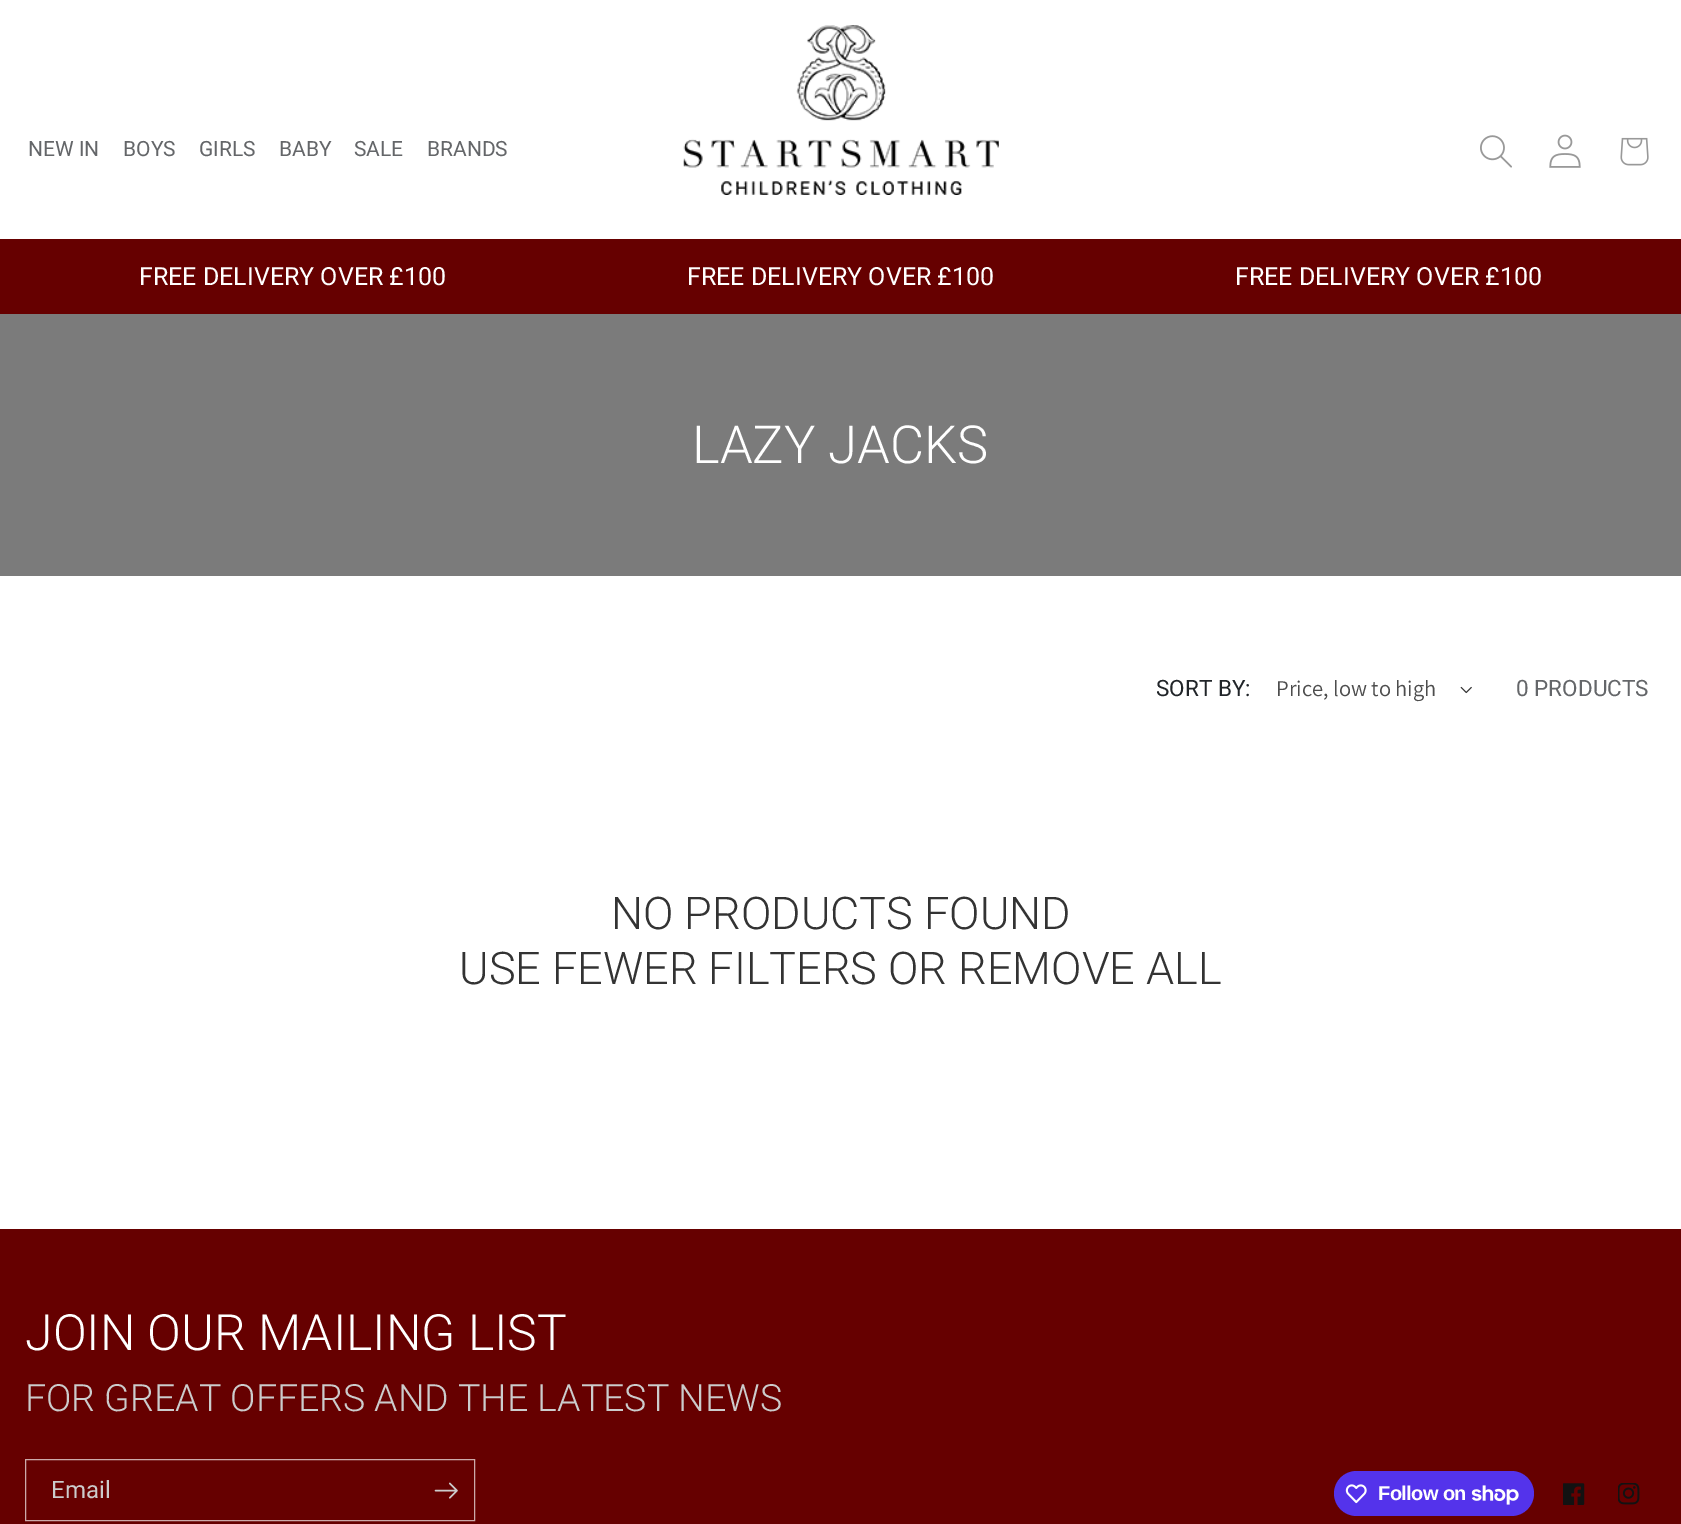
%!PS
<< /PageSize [1681 1524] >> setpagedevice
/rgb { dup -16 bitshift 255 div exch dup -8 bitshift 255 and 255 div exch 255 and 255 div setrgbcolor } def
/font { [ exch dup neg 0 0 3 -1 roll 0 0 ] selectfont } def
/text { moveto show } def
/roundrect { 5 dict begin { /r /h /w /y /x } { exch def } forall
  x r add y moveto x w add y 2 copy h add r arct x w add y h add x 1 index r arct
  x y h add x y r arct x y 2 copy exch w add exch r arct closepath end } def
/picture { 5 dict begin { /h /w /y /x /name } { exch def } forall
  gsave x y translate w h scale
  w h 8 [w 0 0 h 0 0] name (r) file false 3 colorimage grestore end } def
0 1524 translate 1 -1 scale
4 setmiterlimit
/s1 { /Roboto-Regular 21 font 16#646669 rgb } def
/s2 { /Roboto-Regular 25 font 16#FFFFFF rgb } def
/s3 { /Roboto-Light 52.5 font 16#FFFFFF rgb } def
/s4 { /Roboto-Regular 22.5 font 16#212529 rgb } def
/s5 { /Assistant-Regular 22.5 font 16#4D4D4D rgb } def
/s6 { /Roboto-Regular 22.5 font 16#646669 rgb } def
/s7 { /Roboto-Light 45 font 16#333333 rgb } def
/s8 { /Roboto-Light 50 font 16#FFFFFF rgb } def
/s9 { /Roboto-Light 37.5 font 16#CCCCCC rgb } def
/s10 { /Roboto-Regular 24 font 16#CCCCCC rgb } def
16#FFFFFF rgb
0 0 1681 1524 rectfill
s1
(NEW IN) 28 156 text
(BOYS) 123 156 text
(GIRLS) 199 156 text
(BABY) 279 156 text
(SALE) 354 156 text
(BRANDS) 427 156 text
(pic1.raw) 683 25 316 170 picture
(pic2.raw) 1480 135 32 33 picture
(pic3.raw) 1549 134 32 34 picture
(pic4.raw) 1620 137 29 29 picture
16#660000 rgb
0 239 1681 75 rectfill
s2
(FREE DELIVERY OVER £100) 139 285 text
(FREE DELIVERY OVER £100) 687 285 text
(FREE DELIVERY OVER £100) 1235 285 text
16#7B7B7B rgb
0 314 1681 262 rectfill
s3
(LAZY JACKS) 692 463 text
s4
(SORT BY:) 1156 696 text
s5
(Price, low to high) 1276 696 text
(pic5.raw) 1460 686 12 8 picture
s6
(0 PRODUCTS) 1516 696 text
s7
(NO PRODUCTS FOUND) 611 929 text
(USE FEWER FILTERS OR) 459 984 text
(REMOVE ALL) 958 984 text
16#660000 rgb
0 1229 1681 295 rectfill
s8
(JOIN OUR MAILING LIST) 25 1350 text
s9
(FOR GREAT OFFERS AND THE LATEST NEWS) 25 1411 text
16#CCAAAA rgb
25.5 1459.5 449 61 rectstroke
s10
(Email) 51 1498 text
(pic6.raw) 434 1482 24 17 picture
16#5433EB rgb
1334 1471 200 45 22.5 roundrect fill
(pic7.raw) 1345 1484 22 20 picture
/LiberationSans-Bold 20 font
16#FFFFFF rgb
1378 1500 moveto -0.6 0 (Follow on) ashow
(pic8.raw) 1471 1485 48 20 picture
(pic9.raw) 1563 1483 22 22 picture
(pic10.raw) 1618 1483 22 22 picture
showpage
